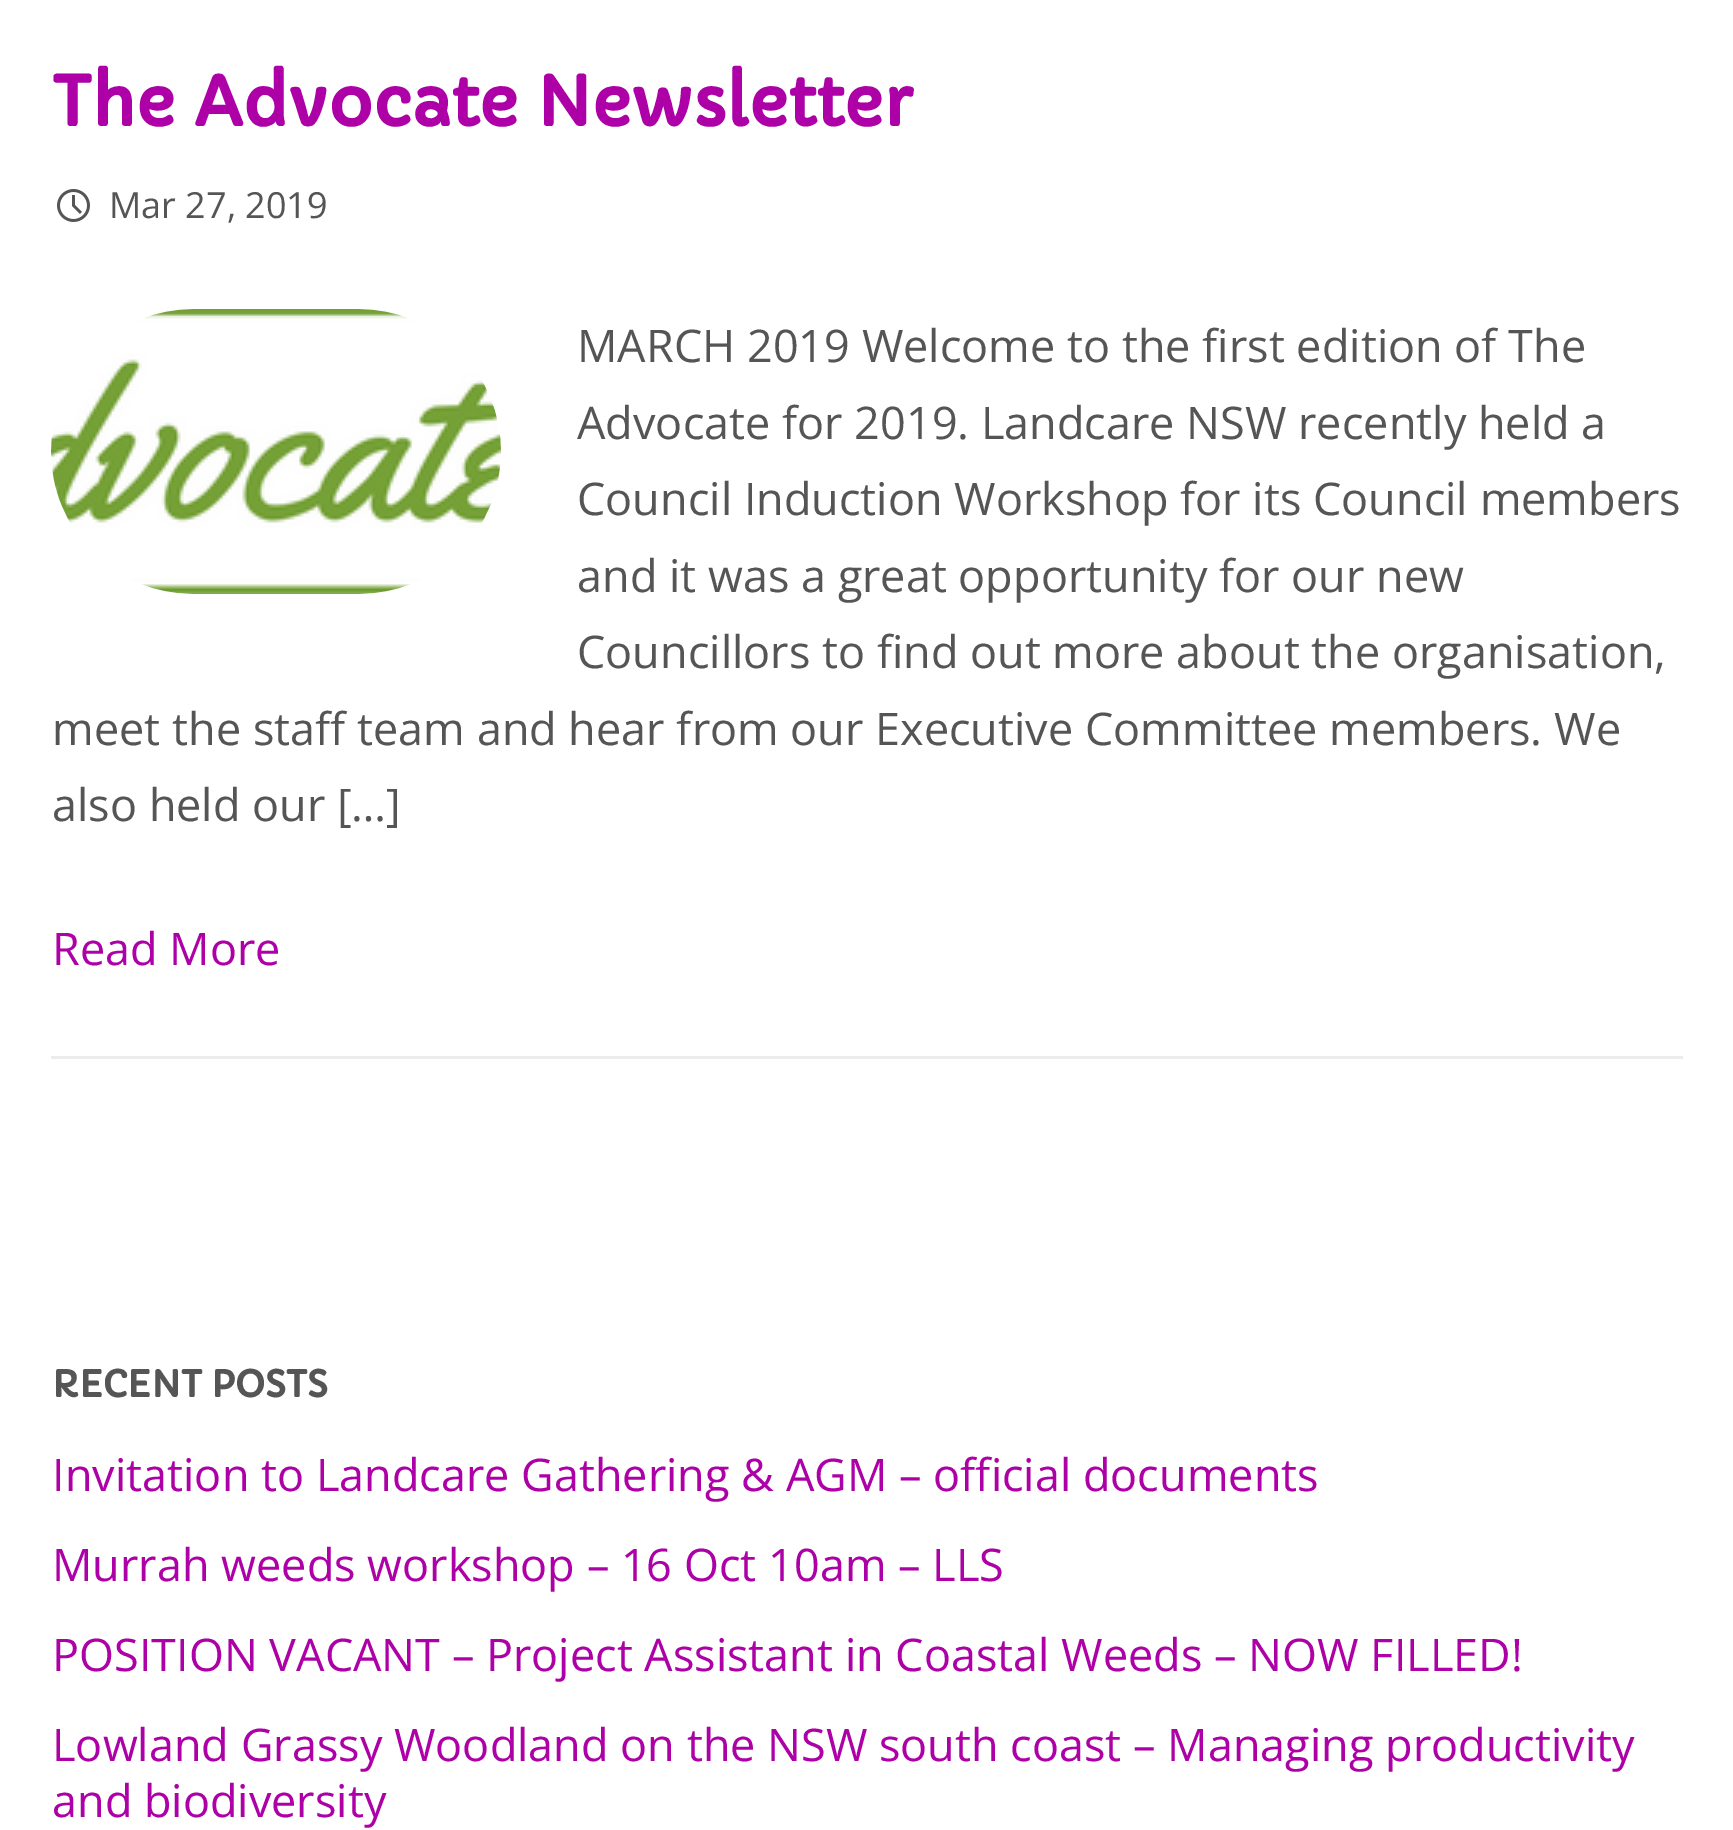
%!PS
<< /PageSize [1733 1830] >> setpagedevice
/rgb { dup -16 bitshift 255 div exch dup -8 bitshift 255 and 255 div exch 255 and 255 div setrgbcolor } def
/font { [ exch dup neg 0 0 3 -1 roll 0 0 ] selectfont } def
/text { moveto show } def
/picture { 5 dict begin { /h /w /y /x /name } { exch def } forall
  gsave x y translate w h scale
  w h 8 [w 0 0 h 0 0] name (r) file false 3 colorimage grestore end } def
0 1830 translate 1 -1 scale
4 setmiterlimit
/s1 { /Capriola-Bold 67.5 font 16#AD00A7 rgb } def
/s2 { /OpenSans-Regular 36 font 16#555555 rgb } def
/s3 { /OpenSans-Regular 45 font 16#555555 rgb } def
/s4 { /OpenSans-Regular 45 font 16#AD00A7 rgb } def
/s5 { /Capriola-Bold 36 font 16#555555 rgb } def
16#FFFFFF rgb
0 0 1733 1830 rectfill
s1
(The Advocate Newsletter) 52 126 text
(pic1.raw) 57 189 33 33 picture
s2
(Mar 27, 2019) 109 218 text
(pic2.raw) 51 309 450 285 picture
s3
(MARCH 2019 Welcome to the first edition of The) 577 362 text
(Advocate for 2019. Landcare NSW recently held a) 577 439 text
(Council Induction Workshop for its Council members) 577 515 text
(and it was a great opportunity for our new) 577 592 text
(Councillors to find out more about the organisation,) 577 668 text
(meet the staff team and hear from our Executive Committee members. We) 52 745 text
(also held our […]) 52 821 text
s4
(Read More) 52 965 text
16#EDEBEB rgb
51 1056 1632 3 rectfill
s5
(RECENT POSTS) 52 1397 text
s4
(Invitation to Landcare Gathering & AGM – official documents) 52 1491 text
(Murrah weeds workshop – 16 Oct 10am – LLS) 52 1581 text
(POSITION VACANT – Project Assistant in Coastal Weeds – NOW FILLED!) 52 1671 text
(Lowland Grassy Woodland on the NSW south coast – Managing productivity) 52 1761 text
(and biodiversity) 52 1817 text
showpage
